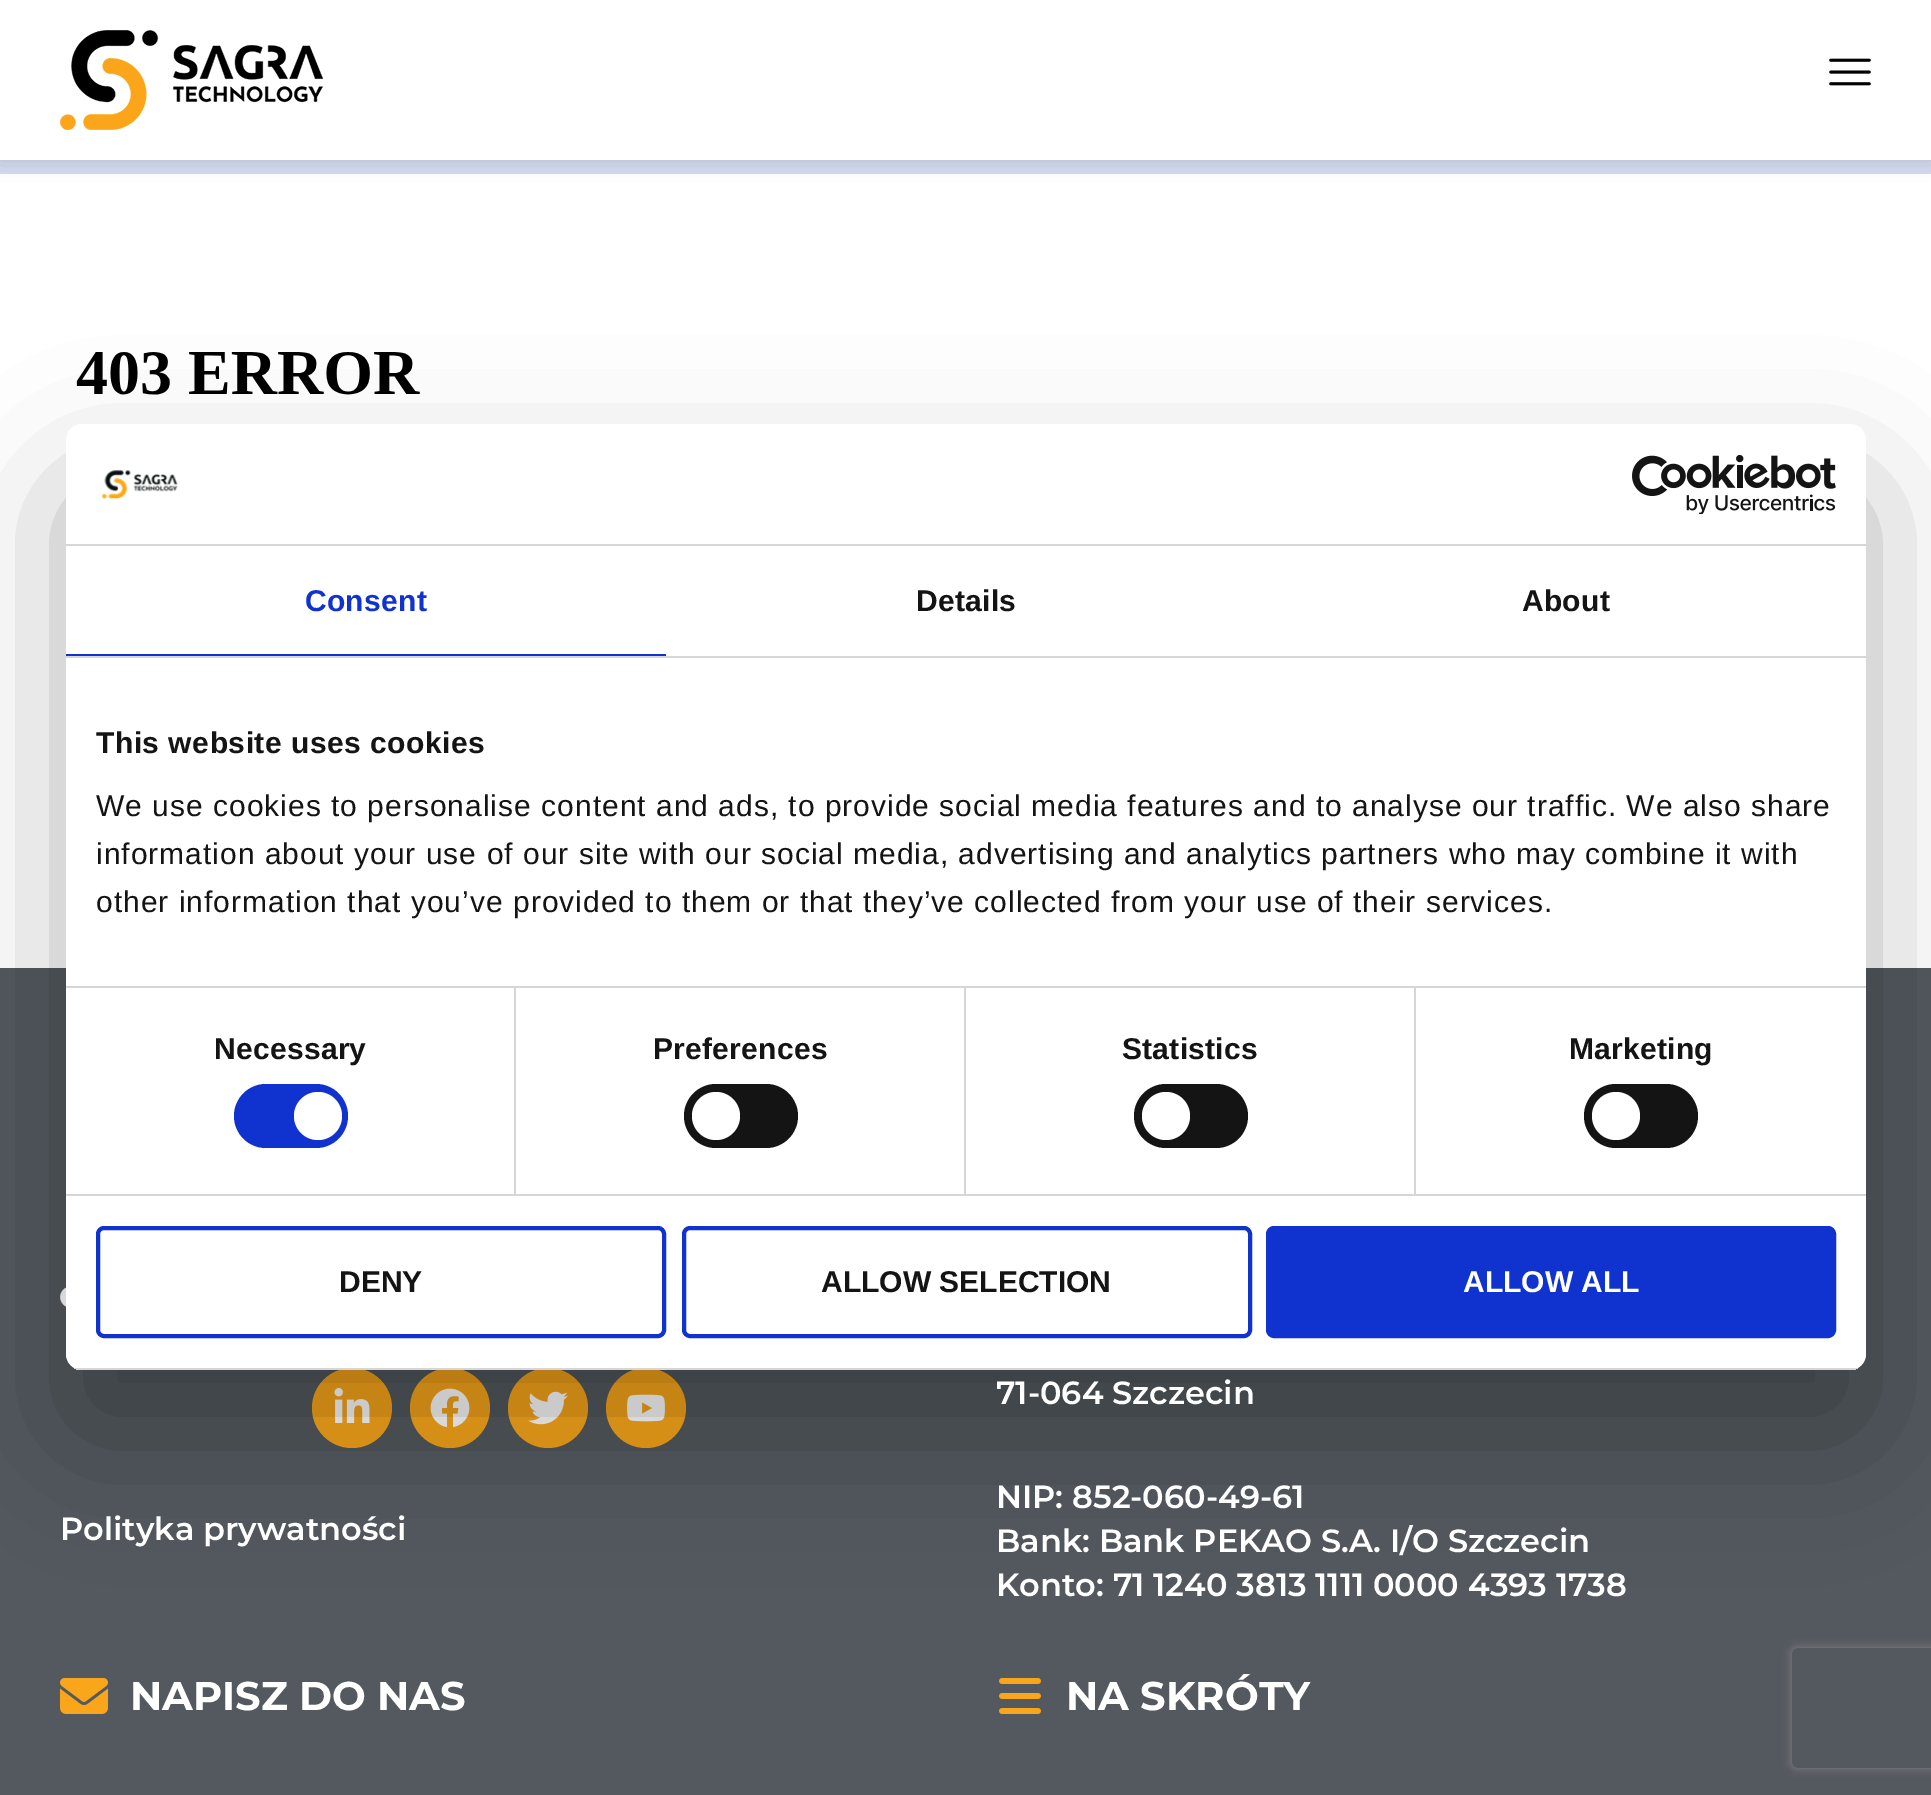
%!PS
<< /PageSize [1931 1795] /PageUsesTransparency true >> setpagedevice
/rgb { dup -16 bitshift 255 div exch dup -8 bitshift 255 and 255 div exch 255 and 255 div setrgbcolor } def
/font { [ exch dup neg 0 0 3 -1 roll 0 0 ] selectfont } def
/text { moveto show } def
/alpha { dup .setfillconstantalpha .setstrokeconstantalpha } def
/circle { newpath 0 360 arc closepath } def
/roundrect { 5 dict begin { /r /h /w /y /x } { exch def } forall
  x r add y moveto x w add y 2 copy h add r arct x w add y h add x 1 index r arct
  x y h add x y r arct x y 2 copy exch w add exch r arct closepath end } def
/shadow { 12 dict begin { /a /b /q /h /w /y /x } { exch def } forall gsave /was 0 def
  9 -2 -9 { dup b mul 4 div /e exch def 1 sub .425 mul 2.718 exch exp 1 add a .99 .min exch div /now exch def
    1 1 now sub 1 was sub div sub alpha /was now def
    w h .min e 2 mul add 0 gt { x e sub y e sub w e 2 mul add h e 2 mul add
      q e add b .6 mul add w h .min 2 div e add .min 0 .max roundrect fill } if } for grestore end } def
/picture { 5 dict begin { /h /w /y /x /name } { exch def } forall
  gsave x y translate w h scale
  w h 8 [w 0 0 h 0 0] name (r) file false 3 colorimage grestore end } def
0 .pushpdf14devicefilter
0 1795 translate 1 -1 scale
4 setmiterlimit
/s1 { /LiberationSans-Bold 30 font 16#141414 rgb } def
/s2 { /LiberationSans-Bold 30 font 16#FFFFFF rgb } def
/s3 { /Montserrat-SemiBold 32 font 16#FFFFFF rgb } def
/s4 { /Montserrat-Bold 40 font 16#FFFFFF rgb } def
16#FFFFFF rgb
0 0 1931 1795 rectfill
16#D4DBEF rgb
0 160 1931 14 rectfill
16#000000 rgb
0 0 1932 160 0 10 0.15 shadow
16#FFFFFF rgb
0 0 1931 160 rectfill
(pic1.raw) 60 30 263 100 picture
(pic2.raw) 1829 58 42 28 picture
(pic3.raw) 76 352 344 43 picture
16#54595F rgb
0 968 1931 827 rectfill
(pic6.raw) 60 1287 6 20 picture
16#FAA61A rgb
352 1408 40 circle fill
(pic7.raw) 334 1388 36 35 picture
450 1408 40 circle fill
(pic8.raw) 430 1388 40 40 picture
548 1408 40 circle fill
(pic9.raw) 528 1391 40 34 picture
646 1408 40 circle fill
(pic10.raw) 627 1394 38 28 picture
16#000000 rgb
66 488 1800 946 16 68 0.3 shadow
16#FFFFFF rgb
66 424 1800 946 16 roundrect fill
16#D6D6D6 rgb
66 544 1800 2 rectfill
(pic4.raw) 101 470 77 30 picture
(pic5.raw) 1632 454 204 60 picture
66 656 1800 2 rectfill
16#1032CF rgb
66 654 600 2 rectfill
/LiberationSans-Bold 30 font
305 611 moveto 0.25 0 (Consent) ashow
16#141414 rgb
916 611 moveto 0.25 0 (Details) ashow
1522 611 moveto 0.25 0 (About) ashow
16#D6D6D6 rgb
66 986 1800 2 rectfill
16#141414 rgb
96 753 moveto 0.5 0 (This website uses cookies) ashow
/LiberationSans-Regular 30 font
96 816 moveto 1 0 (We use cookies to personalise content and ads, to provide social media features and to analyse our traffic. We also share) ashow
96 864 moveto 1 0 (information about your use of our site with our social media, advertising and analytics partners who may combine it with) ashow
96 912 moveto 1 0 (other information that you’ve provided to them or that they’ve collected from your use of their services.) ashow
16#D6D6D6 rgb
66 1194 1800 2 rectfill
514 988 2 206 rectfill
/LiberationSans-Bold 30 font
16#141414 rgb
214 1059 moveto 0.25 0 (Necessary) ashow
16#1032CF rgb
234 1084 114 64 32 roundrect fill
16#FFFFFF rgb
318 1116 24 circle fill
16#D6D6D6 rgb
964 988 2 206 rectfill
16#141414 rgb
653 1059 moveto 0.25 0 (Preferences) ashow
684 1084 114 64 32 roundrect fill
16#FFFFFF rgb
716 1116 24 circle fill
16#D6D6D6 rgb
1414 988 2 206 rectfill
16#141414 rgb
1122 1059 moveto 0.25 0 (Statistics) ashow
1134 1084 114 64 32 roundrect fill
16#FFFFFF rgb
1166 1116 24 circle fill
16#141414 rgb
1569 1059 moveto 0.25 0 (Marketing) ashow
1584 1084 114 64 32 roundrect fill
16#FFFFFF rgb
1616 1116 24 circle fill
gsave
66 424 1800 946 16 roundrect clip newpath
16#D6D6D6 rgb
66 1368 1800 2 rectfill
grestore
16#1032CF rgb
4 setlinewidth
98 1228 566 108 6 roundrect stroke
s1
(DENY) 339 1292 text
16#1032CF rgb
684 1228 566 108 6 roundrect stroke
s1
(ALLOW SELECTION) 821 1292 text
16#1032CF rgb
1268 1228 566 108 6 roundrect gsave fill grestore
stroke
s2
(ALLOW ALL) 1463 1292 text
s3
(Polityka prywatności) 60 1540 text
(71-064 Szczecin) 996 1404 text
(NIP: 852-060-49-61) 996 1508 text
(Bank: Bank PEKAO S.A. I/O Szczecin) 996 1552 text
(Konto: 71 1240 3813 1111 0000 4393 1738) 996 1596 text
(pic11.raw) 60 1678 48 36 picture
s4
(NAPISZ DO NAS) 130 1710 text
(pic12.raw) 999 1678 42 36 picture
(NA SKRÓTY) 1066 1710 text
gsave
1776 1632 moveto 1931 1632 lineto 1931 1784 lineto 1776 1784 lineto closepath 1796 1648 moveto 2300 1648 lineto 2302 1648 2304 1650 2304 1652 curveto 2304 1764 lineto 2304 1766 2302 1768 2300 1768 curveto 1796 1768 lineto 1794 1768 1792 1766 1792 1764 curveto 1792 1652 lineto 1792 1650 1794 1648 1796 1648 curveto closepath eoclip newpath
16#808080 rgb
1792 1648 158 120 4 5 1 shadow
grestore
.poppdf14devicefilter showpage
